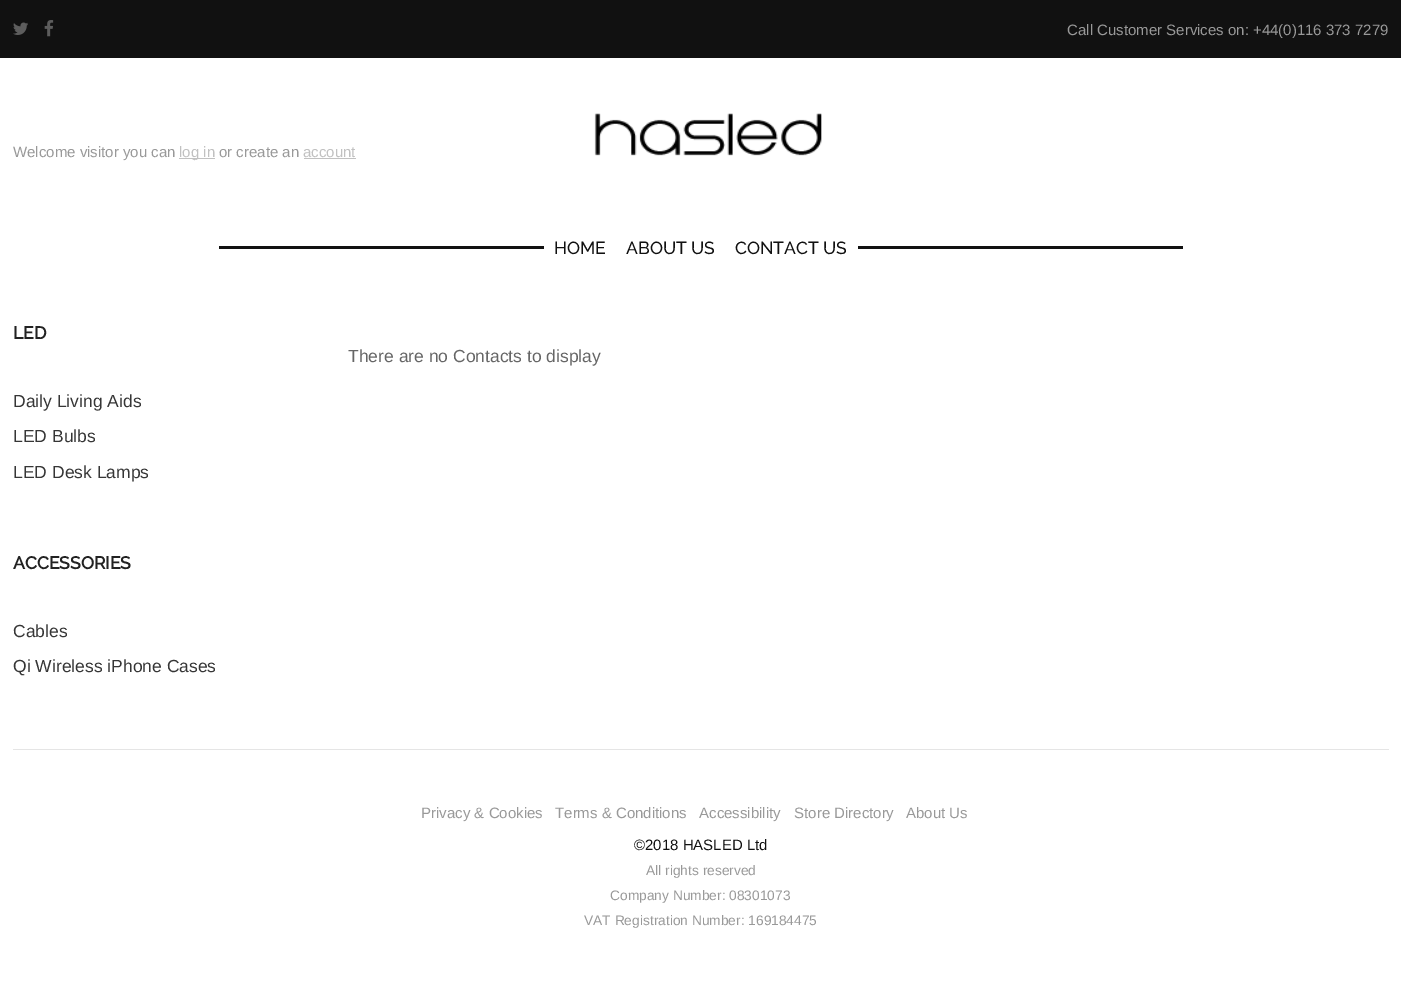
%!PS
<< /PageSize [1401 984] >> setpagedevice
/rgb { dup -16 bitshift 255 div exch dup -8 bitshift 255 and 255 div exch 255 and 255 div setrgbcolor } def
/font { [ exch dup neg 0 0 3 -1 roll 0 0 ] selectfont } def
/text { moveto show } def
/picture { 5 dict begin { /h /w /y /x /name } { exch def } forall
  gsave x y translate w h scale
  w h 8 [w 0 0 h 0 0] name (r) file false 3 colorimage grestore end } def
0 984 translate 1 -1 scale
4 setmiterlimit
/s1 { /LiberationSans-Regular 15 font 16#999999 rgb } def
/s2 { /LiberationSans-Regular 15 font 16#C1C1C1 rgb } def
/s3 { /Raleway-Medium 17.5 font 16#111111 rgb } def
/s4 { /Raleway-Bold 17.5 font 16#222222 rgb } def
/s5 { /LiberationSans-Regular 17.5 font 16#363636 rgb } def
/s6 { /LiberationSans-Regular 17.5 font 16#666666 rgb } def
/s7 { /LiberationSans-Regular 15 font 16#111111 rgb } def
/s8 { /LiberationSans-Regular 13.75 font 16#999999 rgb } def
16#FFFFFF rgb
0 0 1401 984 rectfill
16#111111 rgb
0 0 1401 58 rectfill
(pic1.raw) 13 22 15 13 picture
(pic2.raw) 44 20 10 17 picture
s1
(Call Customer Services on: +44\(0\)116 373 7279) 1067 35 text
(Welcome visitor you can) 13 157 text
16#C1C1C1 rgb
179 158 36 1 rectfill
(log in) 179 157 text
s1
(or create an) 219 157 text
s2
(account) 303 157 text
304 158 52 1 rectfill
(pic3.raw) 594 113 228 43 picture
16#111111 rgb
219 246 964 3 rectfill
16#FFFFFF rgb
544 246 314 3 rectfill
s3
(HOME) 554 254 text
(ABOUT US) 626 254 text
(CONTACT US) 735 254 text
s4
(LED) 13 339 text
s5
(Daily Living Aids) 13 407 text
(LED Bulbs) 13 442 text
(LED Desk Lamps) 13 478 text
s4
(ACCESSORIES) 13 569 text
s5
(Cables) 13 637 text
(Qi Wireless iPhone Cases) 13 672 text
s6
(There are no Contacts to display) 348 362 text
16#E5E5E5 rgb
13 749 1376 1 rectfill
s1
(Privacy & Cookies) 421 818 text
(Terms & Conditions) 555 818 text
(Accessibility) 699 818 text
(Store Directory) 794 818 text
(About Us) 906 818 text
s7
(©2018 HASLED Ltd) 634 850 text
s8
(All rights reserved) 646 875 text
(Company Number: 08301073) 610 900 text
(VAT Registration Number: 169184475) 584 925 text
showpage
